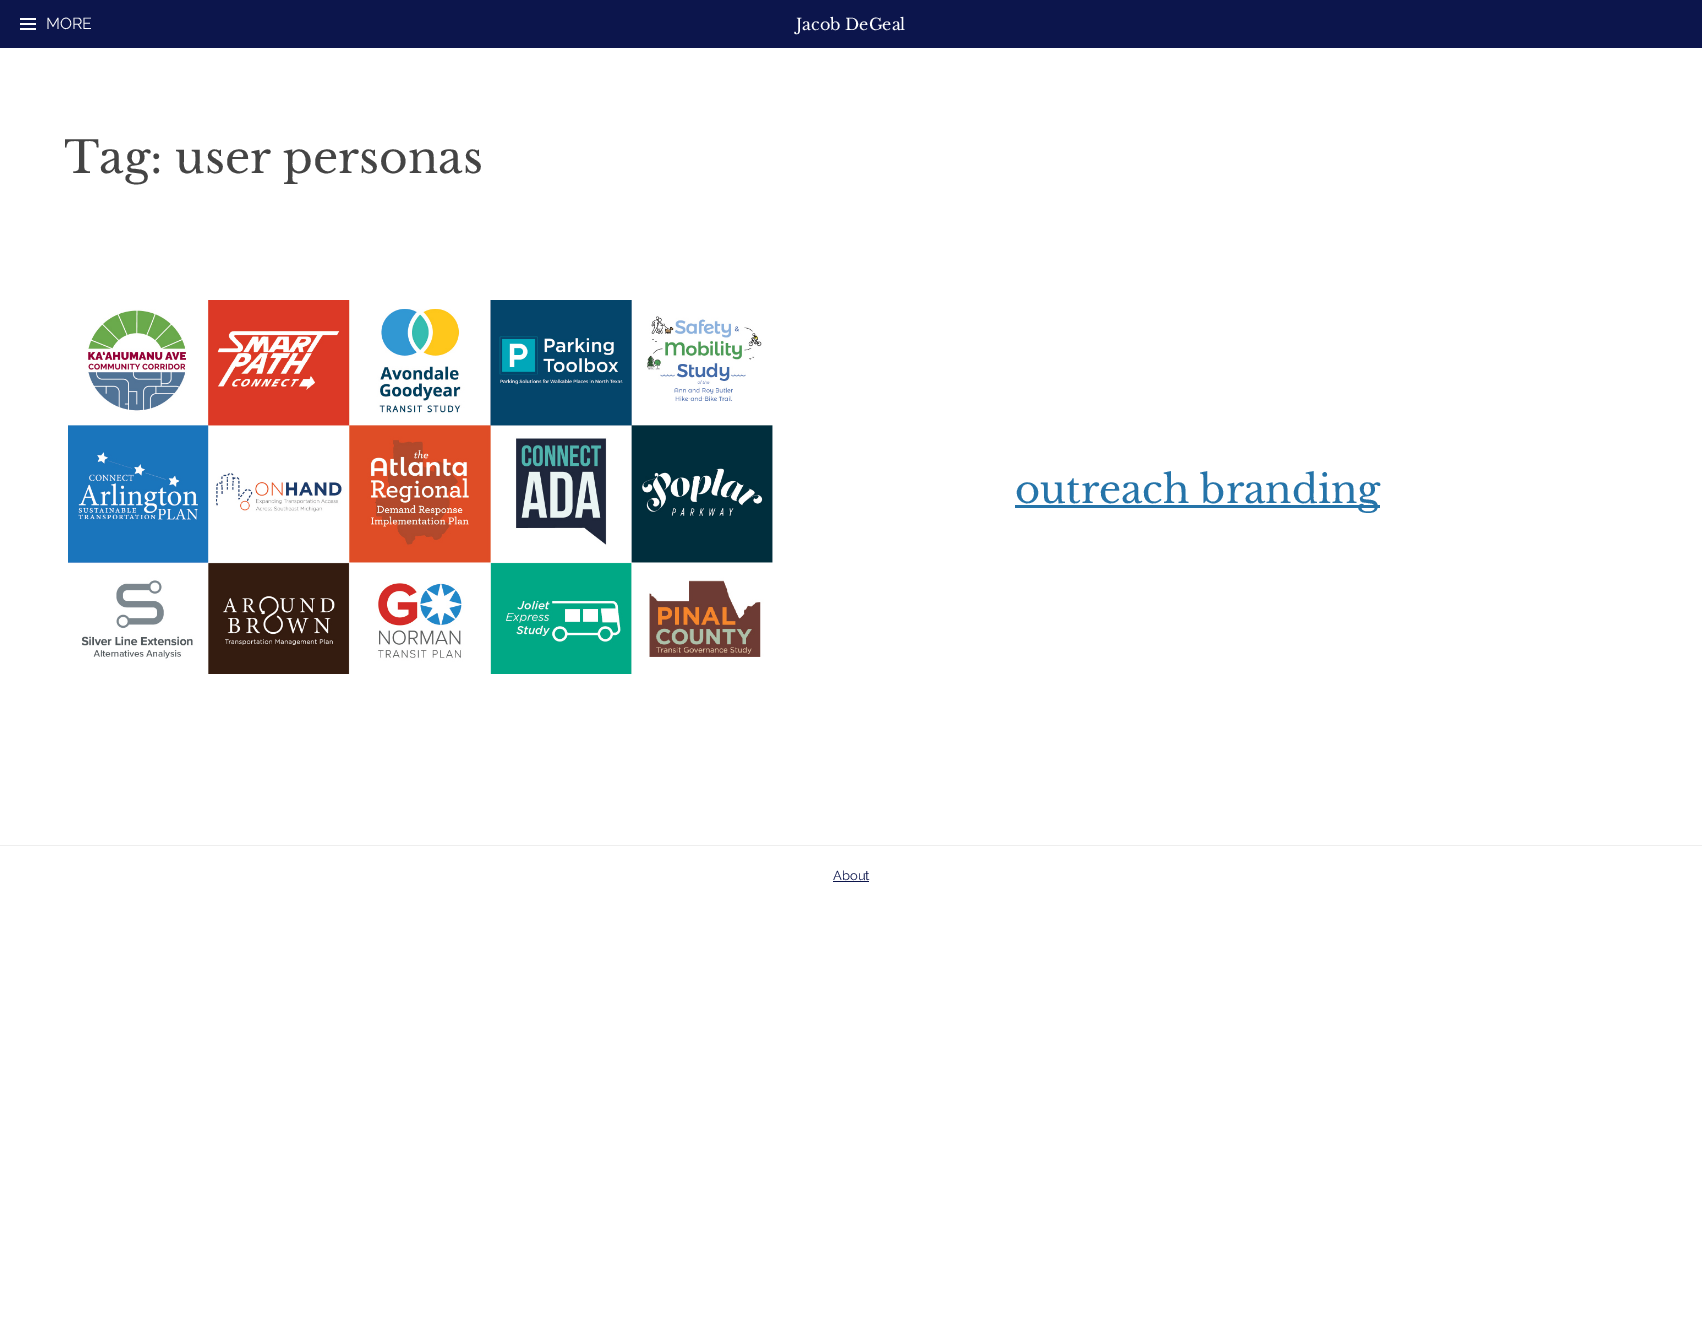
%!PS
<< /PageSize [1702 1339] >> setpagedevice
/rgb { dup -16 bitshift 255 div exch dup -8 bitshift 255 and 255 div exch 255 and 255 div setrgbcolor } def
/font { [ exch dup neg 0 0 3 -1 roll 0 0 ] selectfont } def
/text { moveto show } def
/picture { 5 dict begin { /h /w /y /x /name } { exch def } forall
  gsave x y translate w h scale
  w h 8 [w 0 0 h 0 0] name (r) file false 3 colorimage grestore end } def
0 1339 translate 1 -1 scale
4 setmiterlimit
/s1 { /Raleway-Regular 16 font 16#FFFFFF rgb } def
/s2 { /LibreBaskerville-Regular 16 font 16#FFFFFF rgb } def
/s3 { /LibreBaskerville-Regular 44 font 16#444444 rgb } def
/s4 { /LibreBaskerville-Regular 38.5 font 16#2574A9 rgb } def
/s5 { /Raleway-Regular 13 font 16#0C154C rgb } def
16#FFFFFF rgb
0 0 1702 1339 rectfill
16#0C154C rgb
0 0 1702 48 rectfill
(pic1.raw) 20 18 16 12 picture
s1
(MORE) 46 29 text
s2
(Jacob DeGeal) 796 30 text
s3
(Tag: user personas) 64 173 text
(pic2.raw) 68 300 705 374 picture
16#2574A9 rgb
1015 505 365 3 rectfill
s4
(outreach branding) 1015 503 text
16#EEEEEE rgb
0 845 1702 1 rectfill
s5
(About) 833 880 text
833 881 36 1 rectfill
showpage
